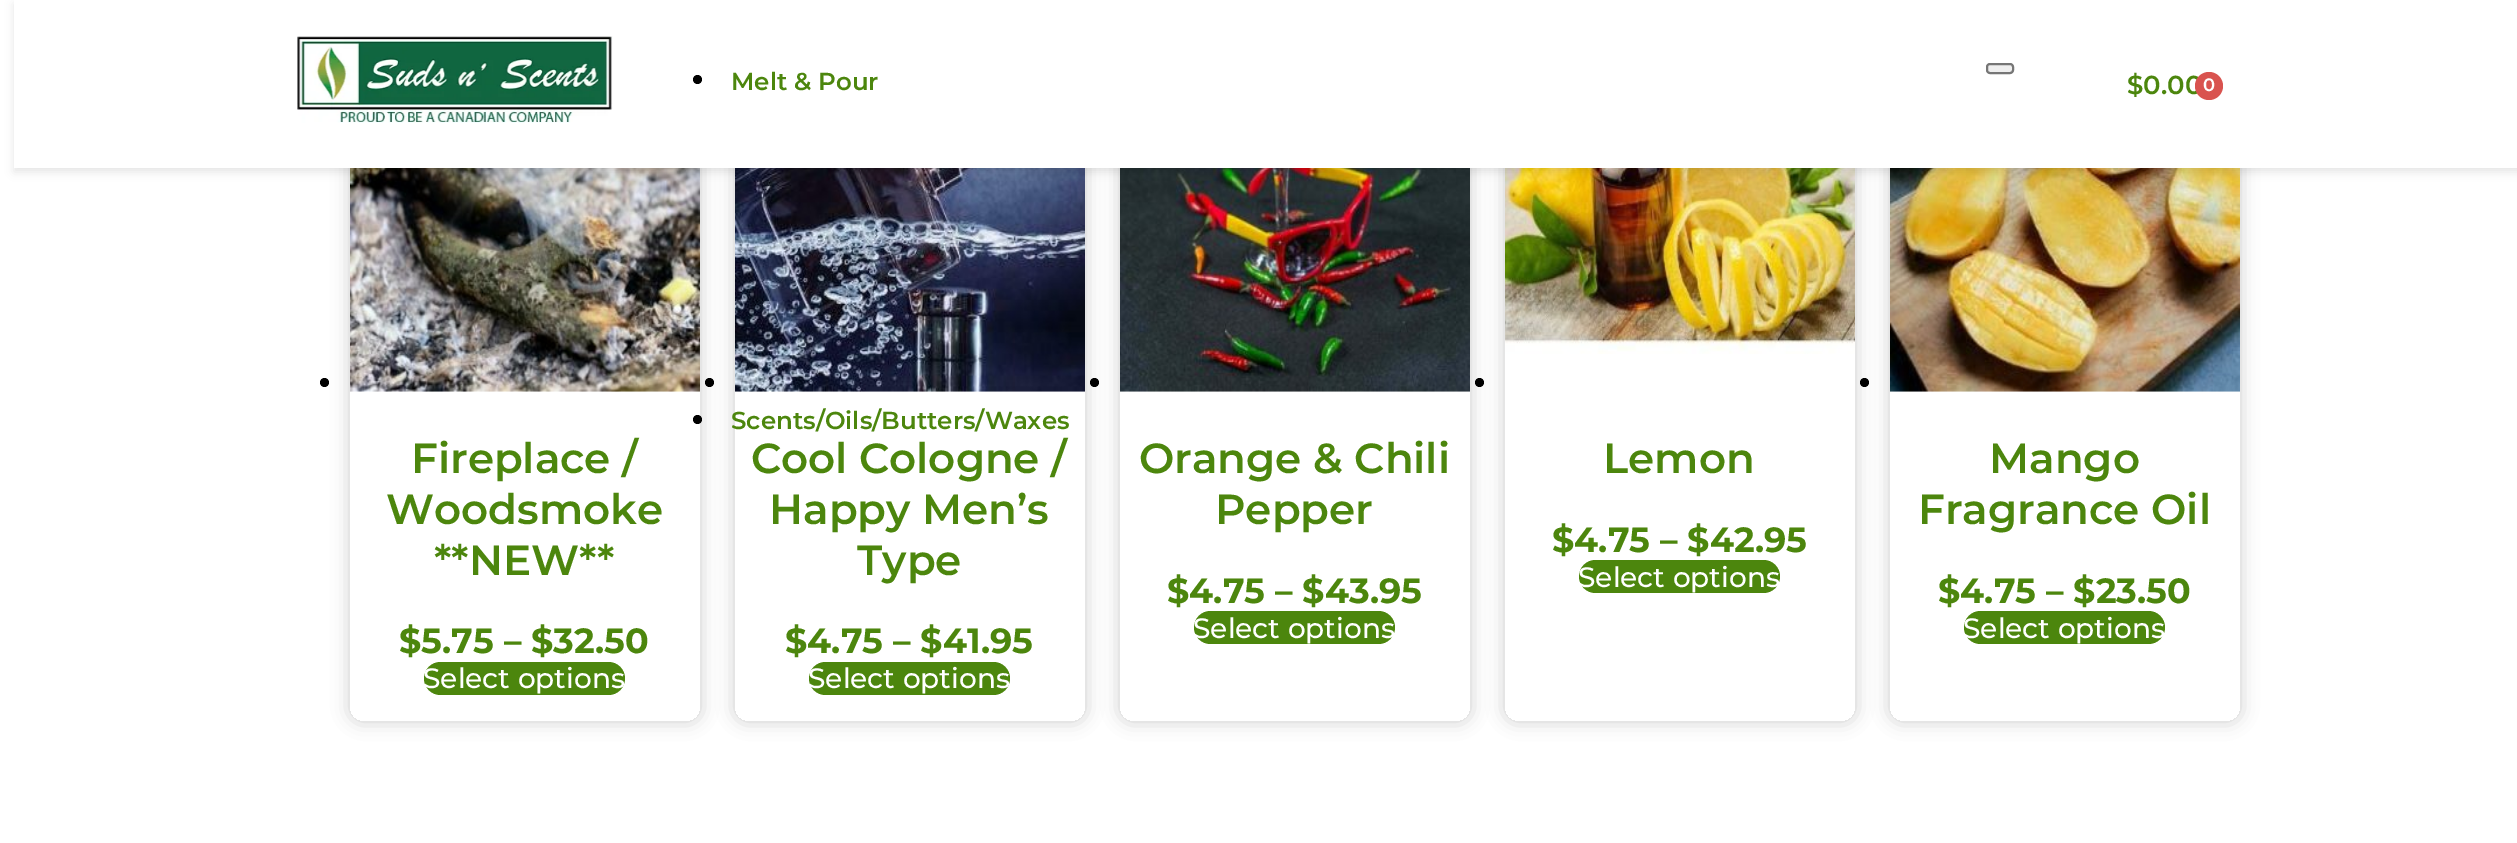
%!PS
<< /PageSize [2517 843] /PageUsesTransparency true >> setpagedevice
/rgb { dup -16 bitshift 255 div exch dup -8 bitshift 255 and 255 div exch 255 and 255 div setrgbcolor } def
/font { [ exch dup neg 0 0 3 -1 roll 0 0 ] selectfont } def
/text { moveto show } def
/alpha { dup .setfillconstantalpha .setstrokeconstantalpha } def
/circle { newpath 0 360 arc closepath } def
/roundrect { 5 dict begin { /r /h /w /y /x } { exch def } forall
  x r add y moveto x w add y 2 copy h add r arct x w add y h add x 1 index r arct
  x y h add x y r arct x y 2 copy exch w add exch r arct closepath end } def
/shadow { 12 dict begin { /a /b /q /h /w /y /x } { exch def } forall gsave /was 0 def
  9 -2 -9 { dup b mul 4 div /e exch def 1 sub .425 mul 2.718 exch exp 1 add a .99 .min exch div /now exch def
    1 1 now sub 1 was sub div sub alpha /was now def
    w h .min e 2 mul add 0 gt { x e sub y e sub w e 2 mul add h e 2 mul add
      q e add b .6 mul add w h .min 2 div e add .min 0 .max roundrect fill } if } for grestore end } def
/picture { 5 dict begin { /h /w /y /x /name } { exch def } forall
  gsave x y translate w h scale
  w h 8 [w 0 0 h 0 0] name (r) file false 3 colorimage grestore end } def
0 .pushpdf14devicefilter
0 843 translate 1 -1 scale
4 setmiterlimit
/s1 { /Montserrat-SemiBold 24.5 font 16#4C860D rgb } def
/s2 { /Montserrat-SemiBold 26 font 16#4C860D rgb } def
/s3 { /Montserrat-SemiBold 18 font 16#FFFFFF rgb } def
/s4 { /Montserrat-SemiBold 42 font 16#4C860D rgb } def
/s5 { /Montserrat-Bold 35 font 16#4C860D rgb } def
/s6 { /Montserrat-Medium 28 font 16#FFFFFF rgb } def
16#FFFFFF rgb
0 0 2517 843 rectfill
gsave
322 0 moveto 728 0 lineto 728 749 lineto 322 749 lineto closepath 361 -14 moveto 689 -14 lineto 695 -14 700 -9 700 -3 curveto 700 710 lineto 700 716 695 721 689 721 curveto 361 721 lineto 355 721 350 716 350 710 curveto 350 -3 lineto 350 -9 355 -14 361 -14 curveto closepath eoclip newpath
16#000000 rgb
350 -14 350 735 11 9 0.2 shadow
grestore
(pic2.raw) 350 168 350 224 picture
gsave
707 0 moveto 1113 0 lineto 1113 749 lineto 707 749 lineto closepath 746 -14 moveto 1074 -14 lineto 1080 -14 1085 -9 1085 -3 curveto 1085 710 lineto 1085 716 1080 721 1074 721 curveto 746 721 lineto 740 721 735 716 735 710 curveto 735 -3 lineto 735 -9 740 -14 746 -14 curveto closepath eoclip newpath
16#000000 rgb
735 -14 350 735 11 9 0.2 shadow
grestore
(pic3.raw) 735 168 350 224 picture
gsave
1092 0 moveto 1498 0 lineto 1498 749 lineto 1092 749 lineto closepath 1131 -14 moveto 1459 -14 lineto 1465 -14 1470 -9 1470 -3 curveto 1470 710 lineto 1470 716 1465 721 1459 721 curveto 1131 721 lineto 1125 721 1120 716 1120 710 curveto 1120 -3 lineto 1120 -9 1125 -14 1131 -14 curveto closepath eoclip newpath
16#000000 rgb
1120 -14 350 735 11 9 0.2 shadow
grestore
(pic4.raw) 1120 168 350 224 picture
gsave
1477 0 moveto 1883 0 lineto 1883 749 lineto 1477 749 lineto closepath 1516 -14 moveto 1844 -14 lineto 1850 -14 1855 -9 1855 -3 curveto 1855 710 lineto 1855 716 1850 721 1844 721 curveto 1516 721 lineto 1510 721 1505 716 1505 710 curveto 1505 -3 lineto 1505 -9 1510 -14 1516 -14 curveto closepath eoclip newpath
16#000000 rgb
1505 -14 350 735 11 9 0.2 shadow
grestore
(pic5.raw) 1505 168 350 186 picture
gsave
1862 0 moveto 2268 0 lineto 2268 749 lineto 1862 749 lineto closepath 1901 -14 moveto 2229 -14 lineto 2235 -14 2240 -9 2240 -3 curveto 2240 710 lineto 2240 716 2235 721 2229 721 curveto 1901 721 lineto 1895 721 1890 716 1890 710 curveto 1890 -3 lineto 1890 -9 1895 -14 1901 -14 curveto closepath eoclip newpath
16#000000 rgb
1890 -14 350 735 11 9 0.2 shadow
grestore
(pic6.raw) 1890 168 350 224 picture
16#000000 rgb
14 4 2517 168 0 4.5 0.1 shadow
16#FFFFFF rgb
14 0 2503 168 rectfill
(pic1.raw) 297 36 316 87 picture
16#EFEFEF rgb
1987 64 26 9 3 roundrect gsave fill grestore
16#767676 rgb
2 setlinewidth
stroke
16#000000 rgb
697.5 79.5 4.5 circle fill
s1
(Melt & Pour) 731 90 text
16#000000 rgb
697.5 419.5 4.5 circle fill
s1
(Scents/Oils/Butters/Waxes) 731 429 text
s2
($0.00) 2127 94 text
16#D9534F rgb
2209 86 14 circle fill
s3
(0) 2203 91 text
16#000000 rgb
324.5 382.5 4.5 circle fill
s4
(Fireplace /) 411 473 text
(Woodsmoke) 386 524 text
(**NEW**) 434 575 text
s5
($5.75 – $32.50) 399 653 text
424 662 201 33 16.5 roundrect fill
s6
(Select options) 423 688 text
16#000000 rgb
709.5 382.5 4.5 circle fill
s4
(Cool Cologne /) 751 473 text
(Happy Men’s) 769 524 text
(Type) 857 575 text
s5
($4.75 – $41.95) 785 653 text
809 662 201 33 16.5 roundrect fill
s6
(Select options) 808 688 text
16#000000 rgb
1094.5 382.5 4.5 circle fill
s4
(Orange & Chili) 1139 473 text
(Pepper) 1215 524 text
s5
($4.75 – $43.95) 1167 603 text
1194 611 201 33 16.5 roundrect fill
s6
(Select options) 1193 638 text
16#000000 rgb
1479.5 382.5 4.5 circle fill
s4
(Lemon) 1603 473 text
s5
($4.75 – $42.95) 1552 552 text
1579 560 201 33 16.5 roundrect fill
s6
(Select options) 1578 587 text
16#000000 rgb
1864.5 382.5 4.5 circle fill
s4
(Mango) 1989 473 text
(Fragrance Oil) 1918 524 text
s5
($4.75 – $23.50) 1938 603 text
1964 611 201 33 16.5 roundrect fill
s6
(Select options) 1963 638 text
.poppdf14devicefilter showpage
